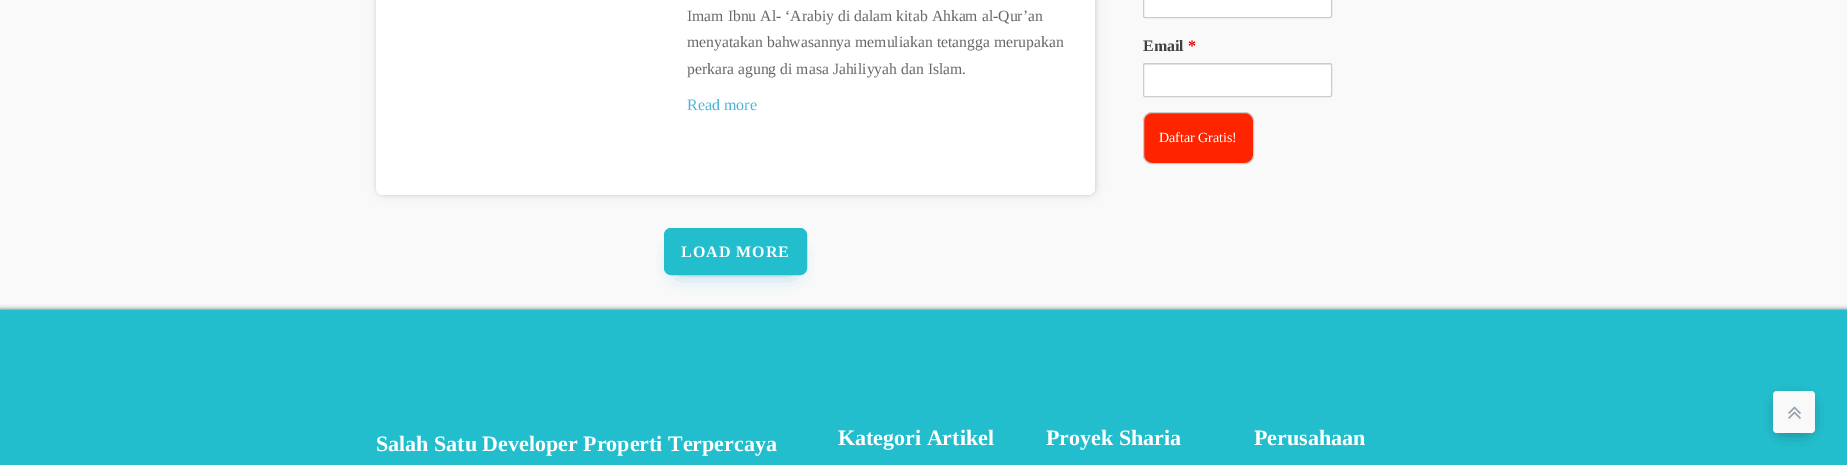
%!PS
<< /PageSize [1847 465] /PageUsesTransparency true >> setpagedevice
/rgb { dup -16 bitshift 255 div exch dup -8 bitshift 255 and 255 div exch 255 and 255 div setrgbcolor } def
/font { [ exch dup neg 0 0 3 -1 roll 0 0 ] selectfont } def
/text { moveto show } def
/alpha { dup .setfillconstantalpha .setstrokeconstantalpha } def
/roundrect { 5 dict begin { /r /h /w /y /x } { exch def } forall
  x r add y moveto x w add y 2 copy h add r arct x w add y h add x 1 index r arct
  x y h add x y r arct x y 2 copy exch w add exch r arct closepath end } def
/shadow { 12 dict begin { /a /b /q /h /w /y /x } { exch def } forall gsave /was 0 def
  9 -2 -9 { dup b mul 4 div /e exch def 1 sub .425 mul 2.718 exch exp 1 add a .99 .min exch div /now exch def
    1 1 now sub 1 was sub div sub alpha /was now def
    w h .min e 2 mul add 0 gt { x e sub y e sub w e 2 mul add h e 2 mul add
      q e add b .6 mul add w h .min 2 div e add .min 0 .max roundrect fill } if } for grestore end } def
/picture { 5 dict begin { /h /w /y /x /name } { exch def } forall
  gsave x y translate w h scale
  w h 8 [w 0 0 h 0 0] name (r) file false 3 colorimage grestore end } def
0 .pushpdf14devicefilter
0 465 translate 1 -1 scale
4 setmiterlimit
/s1 { /LiberationSerif-Regular 15.7 font 16#686868 rgb } def
/s2 { /LiberationSerif-Regular 16 font 16#4FB5D7 rgb } def
/s3 { /LiberationSerif-Bold 16 font 16#404040 rgb } def
/s4 { /LiberationSerif-Bold 16 font 16#EE0000 rgb } def
/s5 { /LiberationSerif-Regular 14 font 16#FFFFFF rgb } def
/s6 { /LiberationSerif-Bold 22 font 16#FFFFFF rgb } def
16#F9F9F9 rgb
0 0 1847 465 rectfill
16#000000 rgb
377 -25 719 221 7 6 0.05 shadow
377 -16 719 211 7 3 0.06 shadow
376 -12 719 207 7 1.5 0.08 shadow
16#FFFFFF rgb
376 -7 719 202 7 roundrect fill
s1
(Imam Ibnu Al- ‘Arabiy di dalam kitab Ahkam al-Qur’an) 687 21 text
(menyatakan bahwasannya memuliakan tetangga merupakan) 687 47 text
(perkara agung di masa Jahiliyyah dan Islam.) 687 74 text
s2
(Read more) 687 110 text
16#FFFFFF rgb
1143.5 -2.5 188 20 1.5 roundrect gsave fill grestore
16#CCCCCC rgb
stroke
s3
(Email) 1143 51 text
s4
(*) 1188 51 text
16#FFFFFF rgb
1143 63 189 34 2 roundrect fill
16#ECECEC rgb
1145 65 moveto 1331 65 lineto 1331 66 lineto 1331 65 1331 64 1330 64 curveto 1144 64 lineto 1144 66 lineto 1144 65 1144 65 1145 65 curveto closepath fill
16#CCCCCC rgb
1143.5 63.5 188 33 1.5 roundrect stroke
16#FF2400 rgb
1143.5 112.5 110 51 8.5 roundrect gsave fill grestore
16#CCCCCC rgb
stroke
s5
(Daftar Gratis!) 1159 142 text
16#4FB5D7 rgb
679 253 113 17 0 10 1 shadow
16#22BECE rgb
664.5 228.5 142 46 6.5 roundrect gsave fill grestore
stroke
/LiberationSerif-Bold 16 font
16#FFFFFF rgb
681 257 moveto 1 0 (LOAD MORE) ashow
16#45585E rgb
0 310 1847 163 0 2.5 1 shadow
16#22BECE rgb
0 310 1847 155 rectfill
s6
(Salah Satu Developer Properti Terpercaya) 376 451 text
(Kategori Artikel) 838 445 text
(Proyek Sharia) 1046 445 text
(Perusahaan) 1254 445 text
16#1E1E1E rgb
1783 405 22 22 0 8.5 1 shadow
16#F9F9FA rgb
1773 391 42 42 4 roundrect fill
(pic1.raw) 1788 406 13 13 picture
.poppdf14devicefilter showpage
